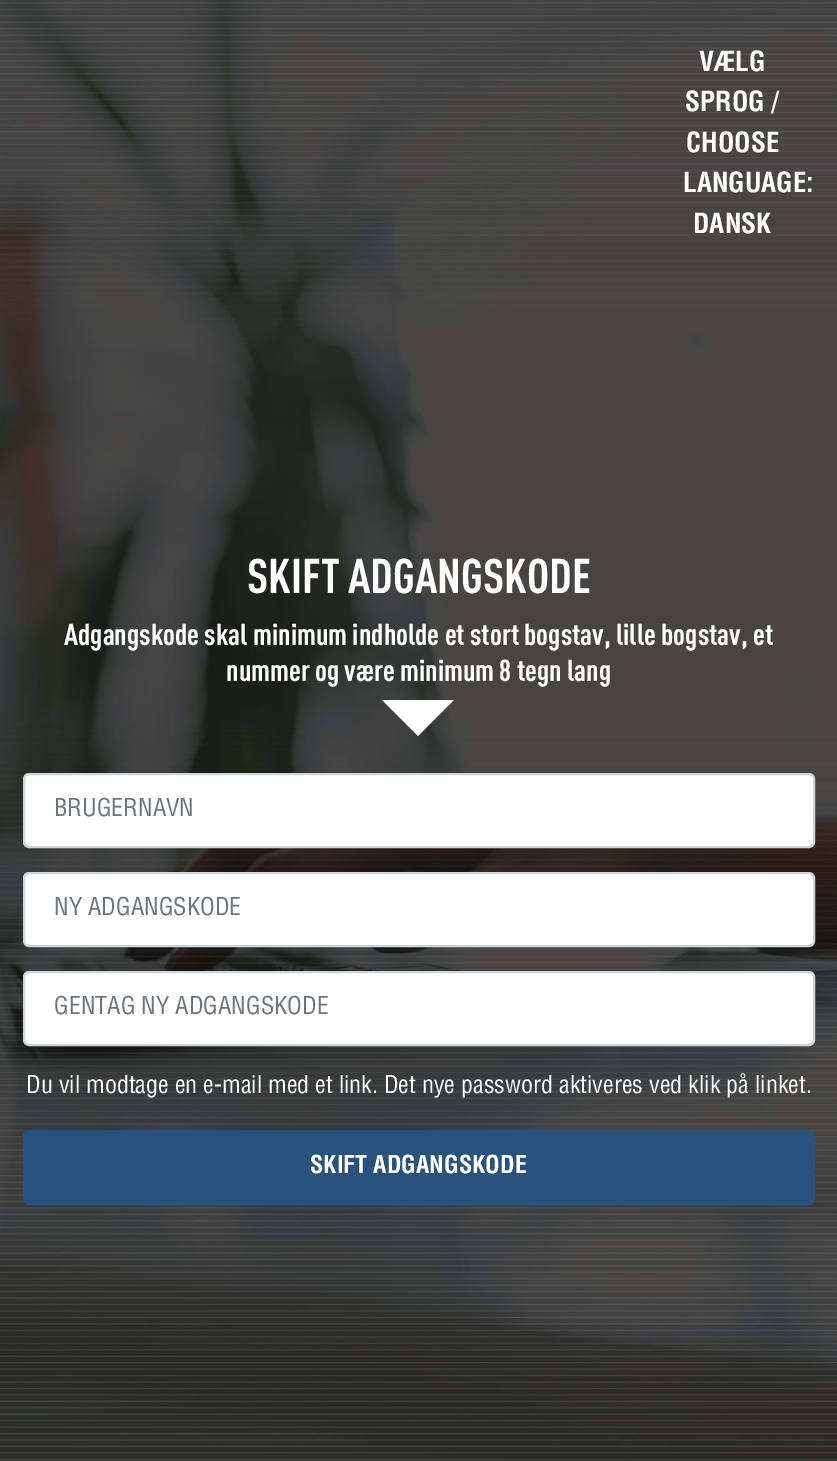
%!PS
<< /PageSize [837 1461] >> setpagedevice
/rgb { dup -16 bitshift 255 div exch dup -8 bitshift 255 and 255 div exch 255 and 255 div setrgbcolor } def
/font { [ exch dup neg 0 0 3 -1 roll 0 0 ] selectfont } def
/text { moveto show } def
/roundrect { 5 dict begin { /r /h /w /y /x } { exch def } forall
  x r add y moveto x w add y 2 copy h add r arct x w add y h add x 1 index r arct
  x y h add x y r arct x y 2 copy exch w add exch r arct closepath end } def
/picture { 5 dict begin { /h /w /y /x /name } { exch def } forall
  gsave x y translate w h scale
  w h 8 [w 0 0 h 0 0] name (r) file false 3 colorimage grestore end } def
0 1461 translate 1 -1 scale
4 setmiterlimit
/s1 { /Helvetica-Bold 27 font 16#FFFFFF rgb } def
/s2 { /DIN-Bold 48 font 16#FFFFFF rgb } def
/s3 { /DIN-Bold 30 font 16#FFFFFF rgb } def
/s4 { /Helvetica-Medium 24 font 16#6C757D rgb } def
/s5 { /Helvetica-Medium 24 font 16#FFFFFF rgb } def
/s6 { /Helvetica-Bold 24 font 16#FFFFFF rgb } def
16#FFFFFF rgb
0 0 837 1461 rectfill
(pic1.raw) 0 0 837 1461 picture
s1
(VÆLG) 699 71 text
(SPROG /) 685 111 text
(CHOOSE) 686 152 text
(LANGUAGE:) 683 192 text
(DANSK) 693 233 text
s2
(SKIFT ADGANGSKODE) 247 593 text
s3
(Adgangskode skal minimum indholde et stort bogstav, lille bogstav, et) 64 645 text
(nummer og være minimum 8 tegn lang) 226 681 text
382 700 moveto 454 700 lineto 418 736 lineto closepath fill
24 774 790 73 5 roundrect gsave fill grestore
16#CED4DA rgb
2 setlinewidth
stroke
s4
(BRUGERNAVN) 54 816 text
16#FFFFFF rgb
24 873 790 73 5 roundrect gsave fill grestore
16#CED4DA rgb
stroke
s4
(NY ADGANGSKODE) 54 915 text
16#FFFFFF rgb
24 972 790 73 5 roundrect gsave fill grestore
16#CED4DA rgb
stroke
s4
(GENTAG NY ADGANGSKODE) 54 1014 text
s5
(Du vil modtage en e-mail med et link. Det nye password aktiveres ved klik på linket.) 26 1093 text
16#29527D rgb
24 1131 790 73 5 roundrect gsave fill grestore
stroke
s6
(SKIFT ADGANGSKODE) 310 1173 text
showpage
